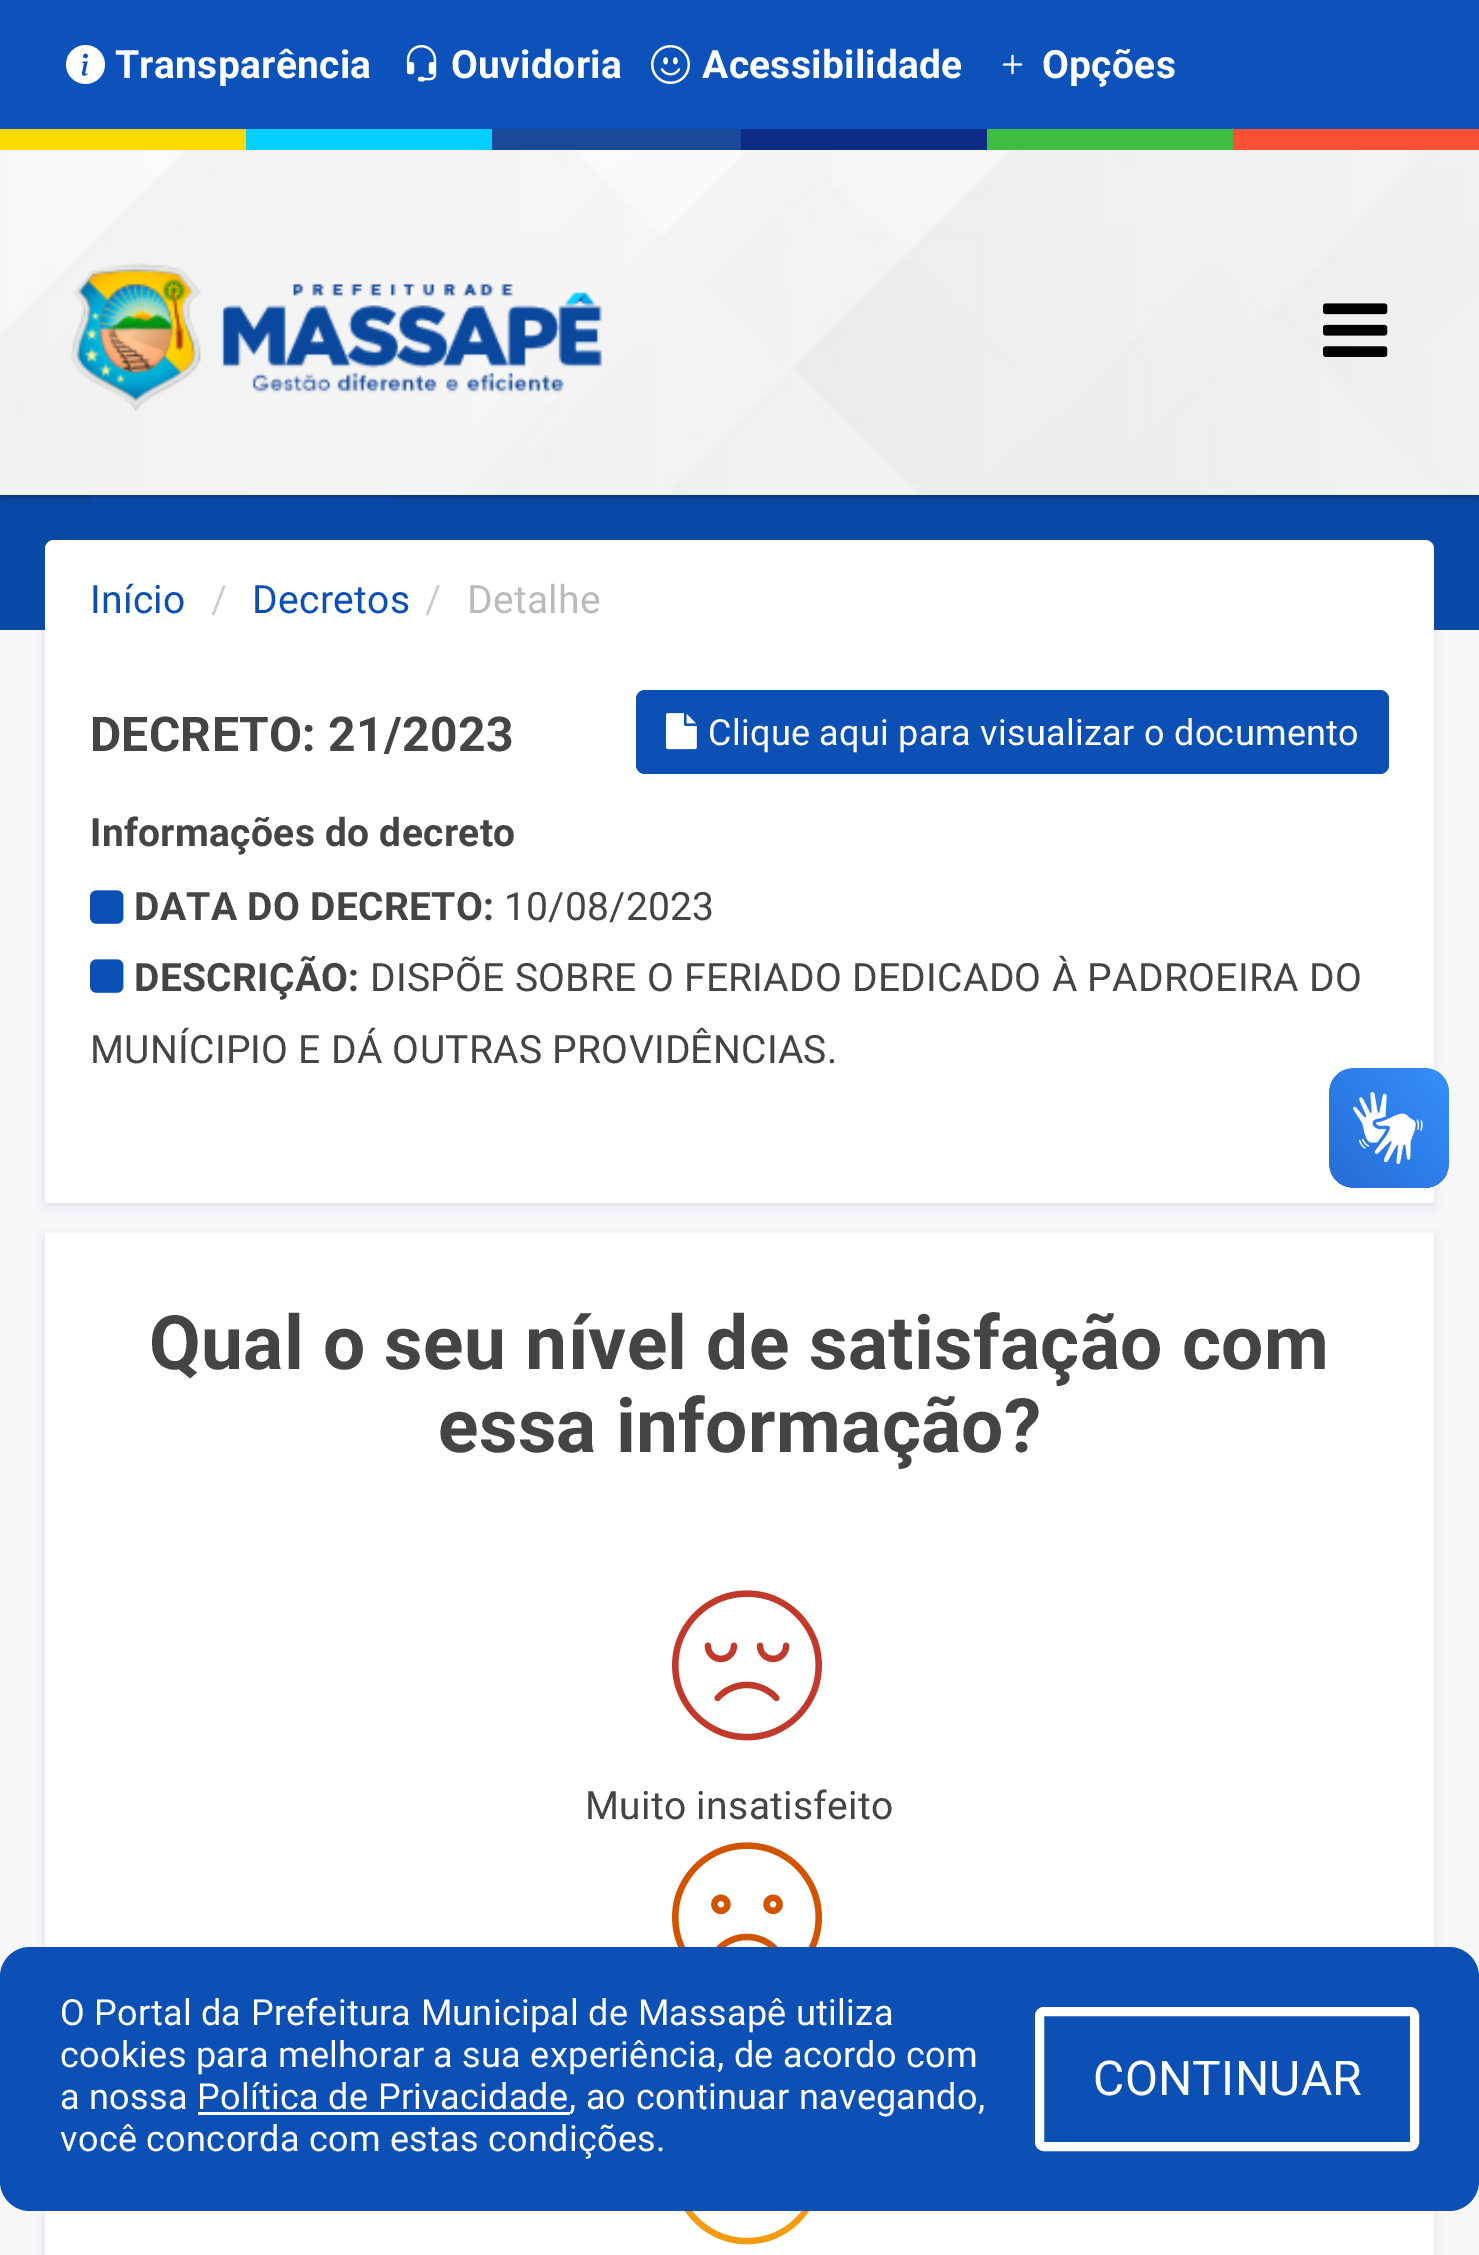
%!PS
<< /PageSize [1479 2255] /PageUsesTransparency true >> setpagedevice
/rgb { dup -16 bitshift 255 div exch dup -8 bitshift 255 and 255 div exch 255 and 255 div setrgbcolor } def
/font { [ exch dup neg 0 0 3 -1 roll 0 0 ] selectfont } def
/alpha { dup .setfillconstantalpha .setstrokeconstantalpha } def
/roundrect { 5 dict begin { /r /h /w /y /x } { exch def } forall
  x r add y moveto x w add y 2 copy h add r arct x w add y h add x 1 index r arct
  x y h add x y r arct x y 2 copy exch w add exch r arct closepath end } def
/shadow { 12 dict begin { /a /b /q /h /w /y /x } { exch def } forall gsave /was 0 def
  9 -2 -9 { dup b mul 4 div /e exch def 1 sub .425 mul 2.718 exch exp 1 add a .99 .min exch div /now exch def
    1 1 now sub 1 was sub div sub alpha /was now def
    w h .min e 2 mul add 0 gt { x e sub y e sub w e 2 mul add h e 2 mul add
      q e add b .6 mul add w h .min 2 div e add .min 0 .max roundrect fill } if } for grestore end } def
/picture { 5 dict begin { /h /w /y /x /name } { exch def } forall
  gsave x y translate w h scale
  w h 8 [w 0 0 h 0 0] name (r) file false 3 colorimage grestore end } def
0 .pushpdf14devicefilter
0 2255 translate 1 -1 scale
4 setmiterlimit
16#F6F7F8 rgb
0 0 1479 2255 rectfill
16#030047 rgb
45 543 1389 663 0 4.5 0.09 shadow
16#0A49A6 rgb
0 495 1479 135 rectfill
16#0C50B6 rgb
90 495 303 6 rectfill
16#000000 rgb
0 3 1479 495 0 3 0.3 shadow
(pic1.raw) 0 150 1479 345 picture
16#0C52BA rgb
0 0 1479 129 rectfill
(pic2.raw) 66 45 39 39 picture
/Roboto-Bold 39 font
16#FFFFFF rgb
115 78 moveto 0.3 0 (Transparência) ashow
(pic3.raw) 406 45 31 37 picture
451 78 moveto 0.3 0 (Ouvidoria) ashow
(pic4.raw) 651 45 39 39 picture
702 78 moveto 0.3 0 (Acessibilidade) ashow
(pic5.raw) 1002 54 21 21 picture
1042 78 moveto 0.3 0 (Opções) ashow
16#FFDA00 rgb
0 129 246 21 rectfill
16#00CFFF rgb
246 129 246 21 rectfill
16#194A99 rgb
492 129 249 21 rectfill
16#0C2C87 rgb
741 129 246 21 rectfill
16#3FBC42 rgb
987 129 246 21 rectfill
16#FB5034 rgb
1233 129 246 21 rectfill
(pic6.raw) 70 263 532 149 picture
(pic7.raw) 1323 303 65 54 picture
16#FFFFFF rgb
45 651 1389 552 rectfill
45 540 1389 120 9 roundrect fill
/Roboto-Regular 39 font
16#0C50B6 rgb
90 613 moveto 0.3 0 (Início) ashow
16#CCCCCC rgb
211 613 moveto 0.3 0 (/) ashow
16#0C50B6 rgb
252 613 moveto 0.3 0 (Decretos) ashow
16#CCCCCC rgb
425 613 moveto 0.3 0 (/) ashow
16#BBBBBB rgb
467 613 moveto 0.3 0 (Detalhe) ashow
/Roboto-Bold 48 font
16#444444 rgb
90 751 moveto 0.3 0 (DECRETO: 21/2023) ashow
16#0C50B6 rgb
636 690 753 84 9 roundrect fill
(pic8.raw) 666 713 31 37 picture
/Roboto-Regular 36 font
16#FFFFFF rgb
708 745 moveto 0.3 0 (Clique aqui para visualizar o documento) ashow
/Roboto-Bold 39 font
16#444444 rgb
90 846 moveto 0.3 0 (Informações do decreto) ashow
(pic9.raw) 90 890 34 34 picture
134 920 moveto 0.3 0 (DATA DO DECRETO:) ashow
/Roboto-Regular 39 font
504 920 moveto 0.3 0 (10/08/2023) ashow
(pic9.raw) 90 959 34 34 picture
/Roboto-Bold 39 font
134 991 moveto 0.3 0 (DESCRIÇÃO:) ashow
/Roboto-Regular 39 font
370 991 moveto 0.3 0 (DISPÕE SOBRE O FERIADO DEDICADO À PADROEIRA DO) ashow
90 1063 moveto 0.3 0 (MUNÍCIPIO E DÁ OUTRAS PROVIDÊNCIAS.) ashow
(pic10.raw) 1329 1068 120 120 picture
(pic11.raw) 1329 1068 120 120 picture
16#030047 rgb
45 1236 1389 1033 0 4.5 0.09 shadow
16#FFFFFF rgb
45 1233 1389 1022 rectfill
/Roboto-Bold 75 font
16#444444 rgb
149 1369 moveto 0.3 0 (Qual o seu nível de satisfação com) ashow
438 1452 moveto 0.3 0 (essa informação?) ashow
(pic12.raw) 672 1590 150 151 picture
/Roboto-Regular 39 font
585 1819 moveto 0.3 0 (Muito insatisfeito) ashow
(pic13.raw) 672 1842 150 105 picture
(pic14.raw) 684 2211 126 34 picture
16#0C50B6 rgb
0 1947 1479 264 30 roundrect fill
/Roboto-Regular 36 font
16#FFFFFF rgb
60 2025 moveto 0.3 0 (O Portal da Prefeitura Municipal de Massapê utiliza) ashow
60 2067 moveto 0.3 0 (cookies para melhorar a sua experiência, de acordo com) ashow
60 2109 moveto 0.3 0 (a nossa Política de Privacidade) ashow
198 2112 372 3 rectfill
569 2109 moveto 0.3 0 (, ao continuar navegando,) ashow
60 2151 moveto 0.3 0 (você concorda com estas condições.) ashow
9 setlinewidth
1039.5 2011.5 375 135 4.5 roundrect stroke
/Roboto-Regular 48 font
1093 2095 moveto 0.3 0 (CONTINUAR) ashow
.poppdf14devicefilter showpage
